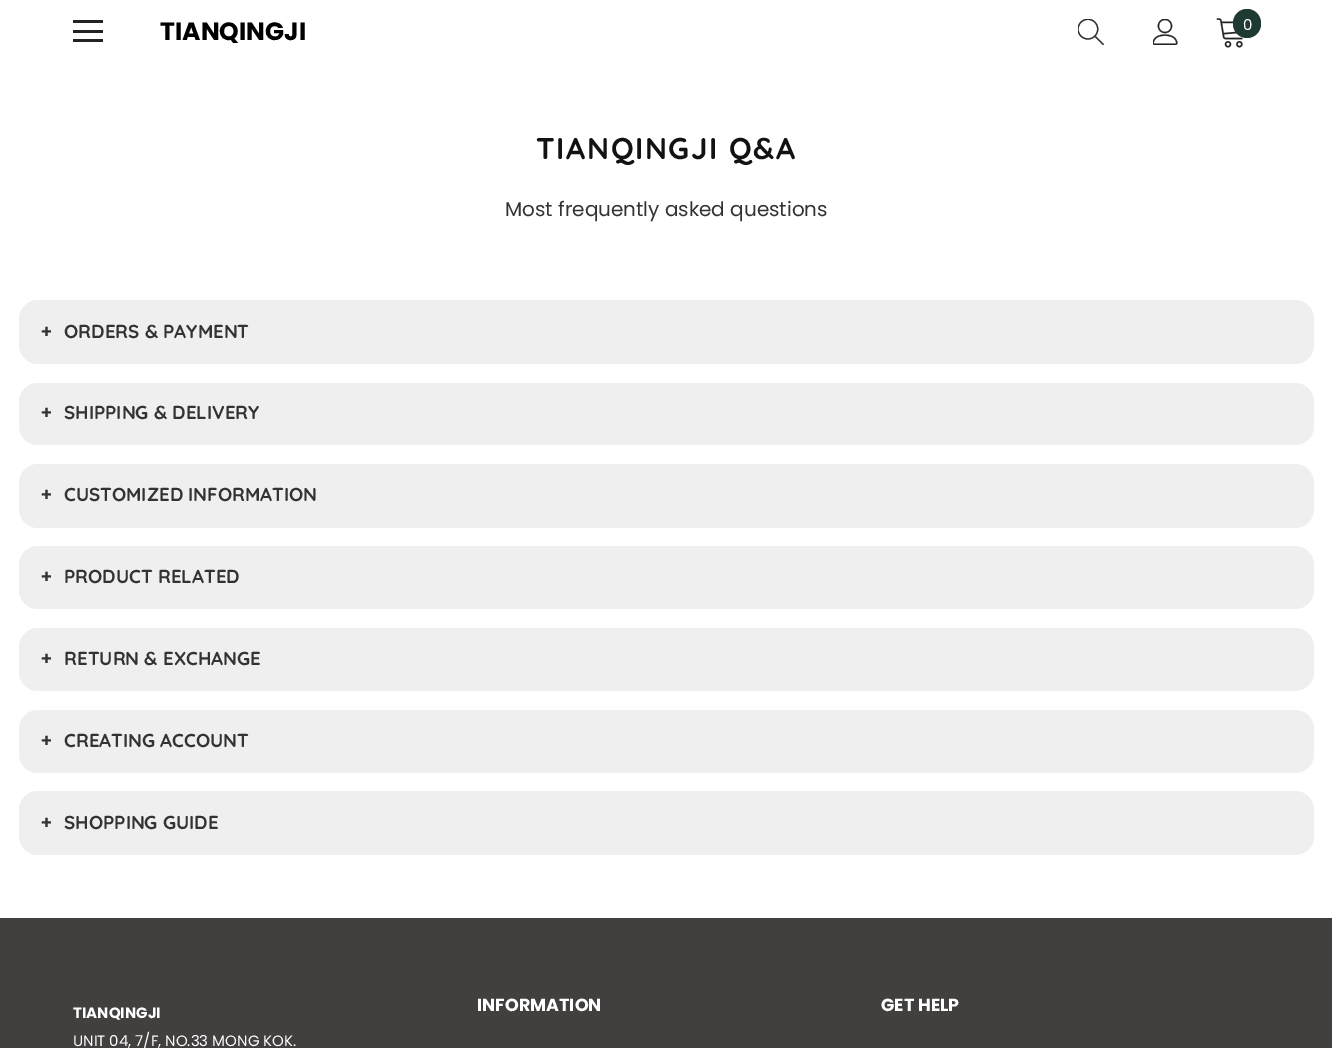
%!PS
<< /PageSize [1332 1048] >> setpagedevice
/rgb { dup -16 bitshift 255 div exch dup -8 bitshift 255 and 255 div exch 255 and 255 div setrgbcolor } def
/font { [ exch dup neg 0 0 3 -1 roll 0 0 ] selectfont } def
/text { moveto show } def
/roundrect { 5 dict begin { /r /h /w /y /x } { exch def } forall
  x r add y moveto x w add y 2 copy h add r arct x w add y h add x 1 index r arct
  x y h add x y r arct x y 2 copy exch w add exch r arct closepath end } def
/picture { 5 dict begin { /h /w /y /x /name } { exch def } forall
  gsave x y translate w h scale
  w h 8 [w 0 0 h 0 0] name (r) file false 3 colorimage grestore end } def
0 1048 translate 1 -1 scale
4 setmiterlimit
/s1 { /Poppins-Bold 25 font 16#000000 rgb } def
/s2 { /Poppins-Regular 15 font 16#FFFFFF rgb } def
/s3 { /Poppins-Regular 20 font 16#333333 rgb } def
/s4 { /NotoSans-Black 18.75 font 16#333333 rgb } def
/s5 { /Quicksand-Bold 18.75 font 16#333333 rgb } def
/s6 { /Poppins-Bold 17.5 font 16#FFFFFF rgb } def
/s7 { /Poppins-Bold 15 font 16#FFFFFF rgb } def
16#423F3F rgb
0 0 1332 1048 rectfill
16#FFFFFF rgb
0 0 1332 918 rectfill
16#232323 rgb
73 20 30 3 rectfill
73 30 30 3 rectfill
73 39 30 3 rectfill
s1
(TIANQINGJI) 160 40 text
(pic1.raw) 1078 19 26 26 picture
(pic2.raw) 1153 19 25 26 picture
(pic3.raw) 1216 18 27 30 picture
16#1F3933 rgb
1233 9 28 29 14 roundrect fill
s2
(0) 1243 30 text
/Quicksand-Bold 30 font
16#111213 rgb
536 159 moveto 1.6 0 (TIANQINGJI Q&A) ashow
s3
(Most frequently asked questions) 505 216 text
16#EFEFEF rgb
19 300 1295 64 19 roundrect fill
s4
(+) 41 338 text
s5
(ORDERS & PAYMENT) 64 338 text
16#EFEFEF rgb
19 383 1295 62 19 roundrect fill
s4
(+) 41 419 text
s5
(SHIPPING & DELIVERY) 64 419 text
16#EFEFEF rgb
19 464 1295 64 19 roundrect fill
s4
(+) 41 501 text
s5
(CUSTOMIZED INFORMATION) 64 501 text
16#EFEFEF rgb
19 546 1295 63 19 roundrect fill
s4
(+) 41 583 text
s5
(PRODUCT RELATED) 64 583 text
16#EFEFEF rgb
19 628 1295 63 19 roundrect fill
s4
(+) 41 665 text
s5
(RETURN & EXCHANGE) 64 665 text
16#EFEFEF rgb
19 710 1295 63 19 roundrect fill
s4
(+) 41 747 text
s5
(CREATING ACCOUNT) 64 747 text
16#EFEFEF rgb
19 791 1295 64 19 roundrect fill
s4
(+) 41 829 text
s5
(SHOPPING GUIDE) 64 829 text
s6
(INFORMATION) 477 1011 text
(GET HELP) 881 1011 text
s7
(TIANQINGJI) 73 1018 text
s2
(UNIT 04, 7/F, NO.33 MONG KOK.) 73 1046 text
showpage
